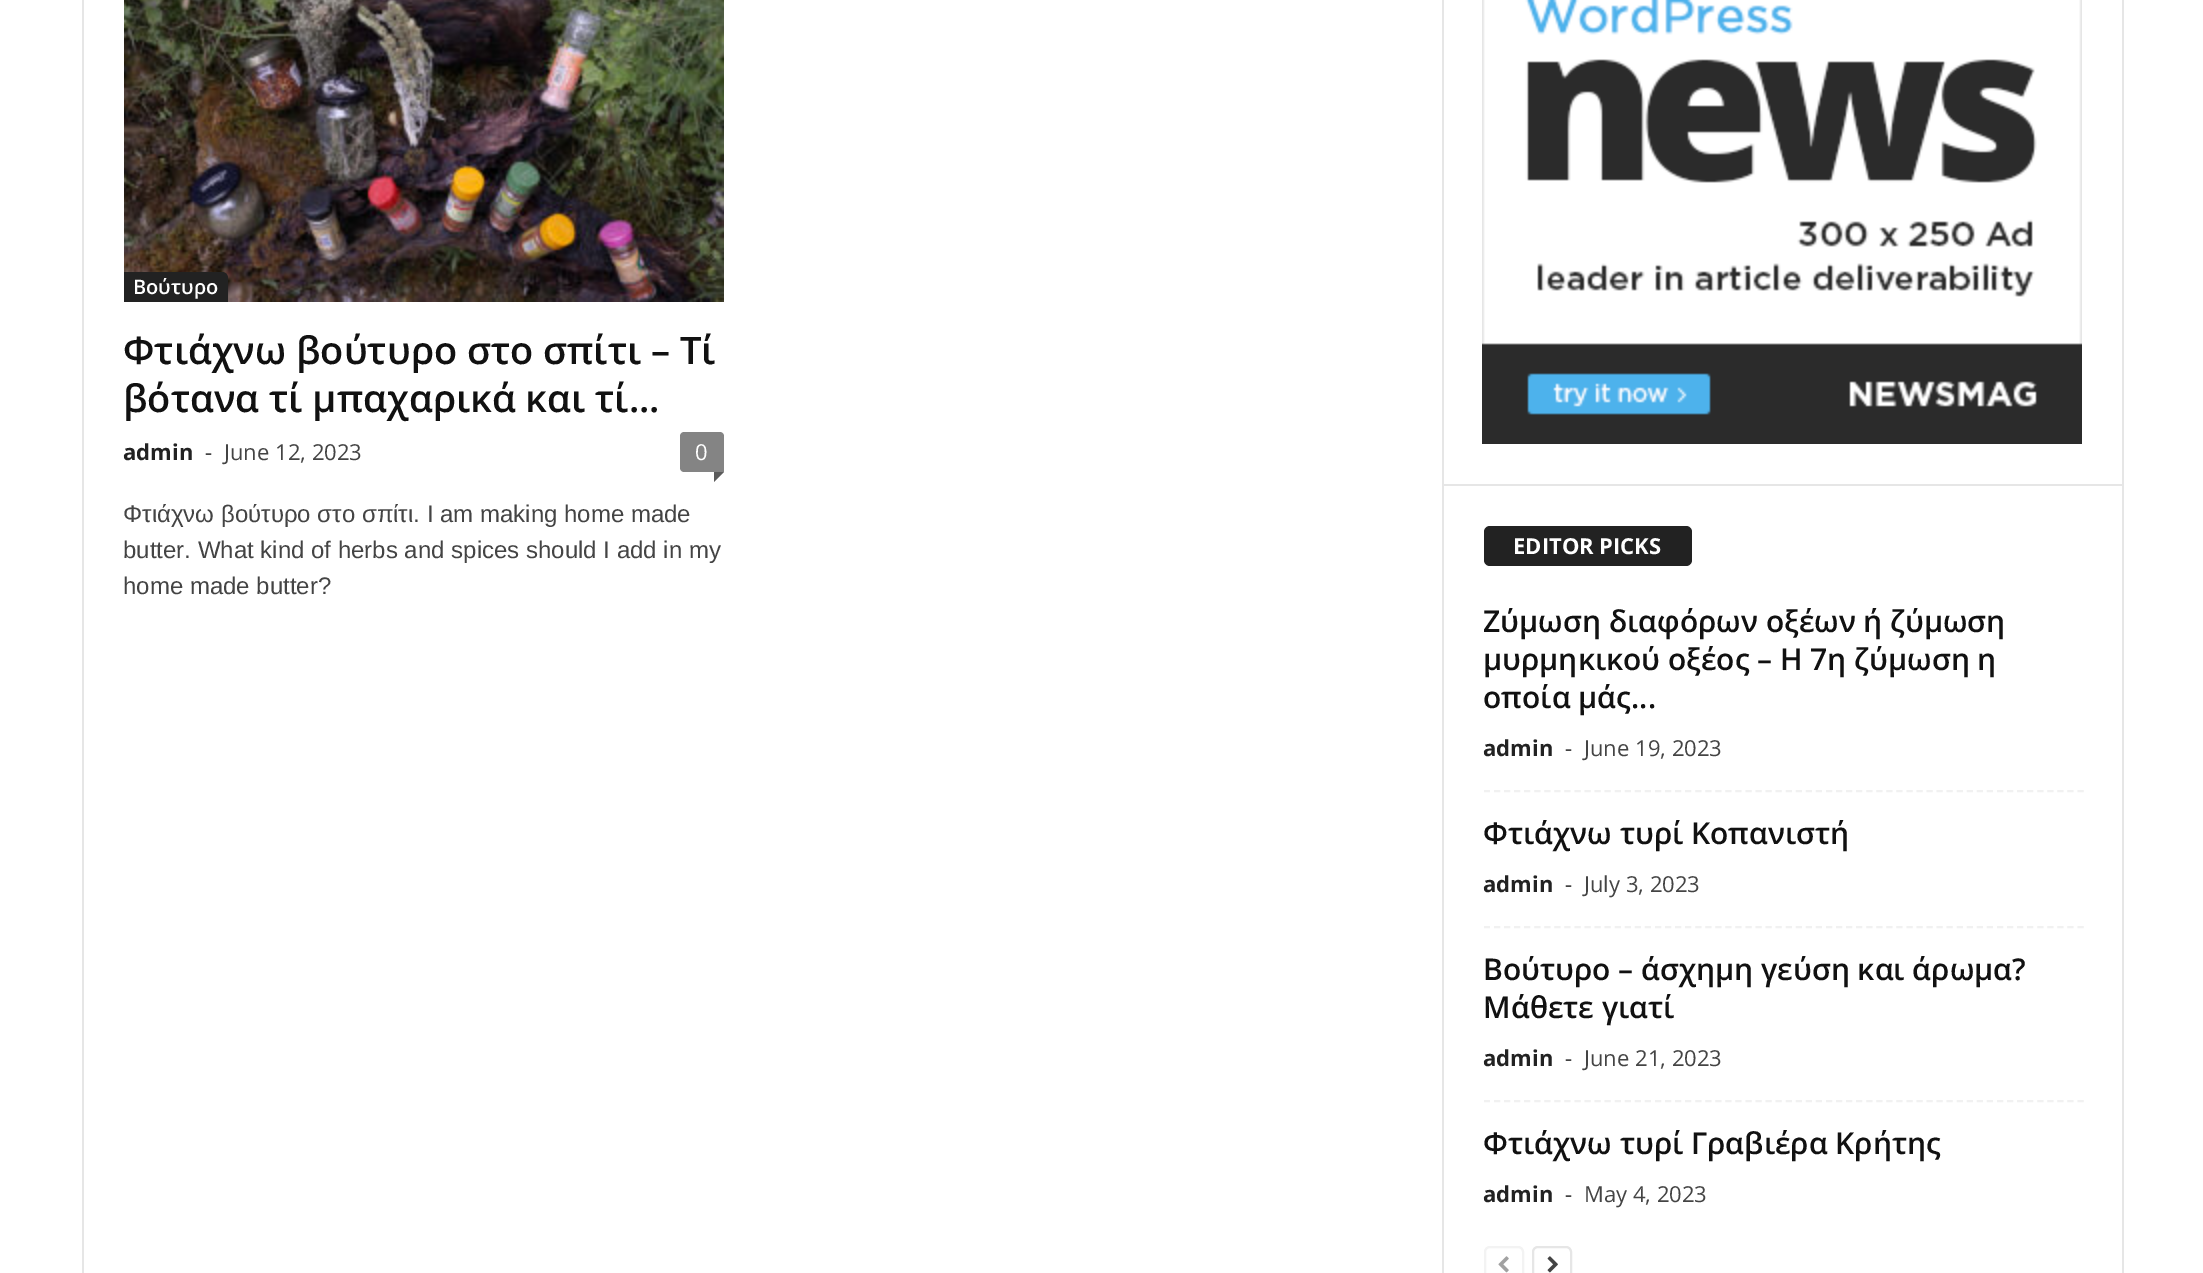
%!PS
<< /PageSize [2203 1273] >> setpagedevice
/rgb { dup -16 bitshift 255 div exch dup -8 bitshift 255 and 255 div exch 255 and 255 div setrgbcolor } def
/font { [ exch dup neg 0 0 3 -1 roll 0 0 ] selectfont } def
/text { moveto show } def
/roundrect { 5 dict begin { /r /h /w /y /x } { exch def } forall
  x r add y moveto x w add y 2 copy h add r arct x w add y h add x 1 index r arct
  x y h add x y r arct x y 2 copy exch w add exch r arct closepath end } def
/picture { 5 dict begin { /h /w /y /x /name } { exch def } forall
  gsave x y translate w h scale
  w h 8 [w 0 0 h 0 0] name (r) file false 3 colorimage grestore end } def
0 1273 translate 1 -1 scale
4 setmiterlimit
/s1 { /OpenSans-SemiBold 20 font 16#FFFFFF rgb } def
/s2 { /OpenSans-SemiBold 38 font 16#111111 rgb } def
/s3 { /OpenSans-Bold 22 font 16#222222 rgb } def
/s4 { /OpenSans-Regular 22 font 16#444444 rgb } def
/s5 { /OpenSans-Regular 22 font 16#FFFFFF rgb } def
/s6 { /LiberationSans-Regular 24 font 16#444444 rgb } def
/s7 { /OpenSans-Bold 22 font 16#FFFFFF rgb } def
/s8 { /OpenSans-SemiBold 30 font 16#111111 rgb } def
16#FFFFFF rgb
0 0 2203 1273 rectfill
16#E6E6E6 rgb
82 0 2 1273 rectfill
(pic1.raw) 124 0 600 302 picture
16#222222 rgb
124 272 moveto 222 272 lineto 225.5 272 228 274.5 228 278 curveto 228 302 lineto 124 302 lineto closepath fill
s1
(Βούτυρο) 133 294 text
s2
(Φτιάχνω βούτυρο στο σπίτι – Τί) 123 364 text
(βότανα τί μπαχαρικά και τί...) 123 412 text
s3
(admin) 123 460 text
s4
(-) 205 460 text
(June 12, 2023) 224 460 text
16#848484 rgb
684 432 moveto 720 432 lineto 722 432 724 434 724 436 curveto 724 472 lineto 684 472 lineto 682 472 680 470 680 468 curveto 680 436 lineto 680 434 682 432 684 432 curveto closepath fill
s5
(0) 695 460 text
16#5B5B5B rgb
714 472 moveto 724 472 lineto 714 482 lineto closepath fill
s6
(Φτιάχνω βούτυρο στο σπίτι. I am making home made) 123 522 text
(butter. What kind of herbs and spices should I add in my) 123 558 text
(home made butter?) 123 594 text
16#E6E6E6 rgb
1442 0 2 1273 rectfill
(pic2.raw) 1482 0 600 444 picture
1444 484 678 2 rectfill
16#222222 rgb
1484 526 208 40 6 roundrect fill
s7
(EDITOR PICKS) 1513 554 text
16#F1F1F1 rgb
2 setlinewidth
[6 4.06] 0 setdash
1484 791 moveto 2084 791 lineto stroke
s8
(Ζύμωση διαφόρων οξέων ή ζύμωση) 1483 632 text
(μυρμηκικού οξέος – Η 7η ζύμωση η) 1483 670 text
(οποία μάς...) 1483 708 text
s3
(admin) 1483 756 text
s4
(-) 1565 756 text
(June 19, 2023) 1584 756 text
16#F1F1F1 rgb
1484 927 moveto 2084 927 lineto stroke
s8
(Φτιάχνω τυρί Κοπανιστή) 1483 844 text
s3
(admin) 1483 892 text
s4
(-) 1565 892 text
(July 3, 2023) 1584 892 text
16#F1F1F1 rgb
1484 1101 moveto 2084 1101 lineto stroke
s8
(Βούτυρο – άσχημη γεύση και άρωμα?) 1483 980 text
(Μάθετε γιατί) 1483 1018 text
s3
(admin) 1483 1066 text
s4
(-) 1565 1066 text
(June 21, 2023) 1584 1066 text
s8
(Φτιάχνω τυρί Γραβιέρα Κρήτης) 1483 1154 text
s3
(admin) 1483 1202 text
s4
(-) 1565 1202 text
(May 4, 2023) 1584 1202 text
16#F3F3F3 rgb
[] 0 setdash
1485 1247 38 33 5 roundrect stroke
(pic3.raw) 1498 1256 11 17 picture
16#E6E6E6 rgb
1533 1247 38 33 5 roundrect stroke
(pic4.raw) 1547 1256 11 17 picture
2122 0 2 1273 rectfill
showpage
